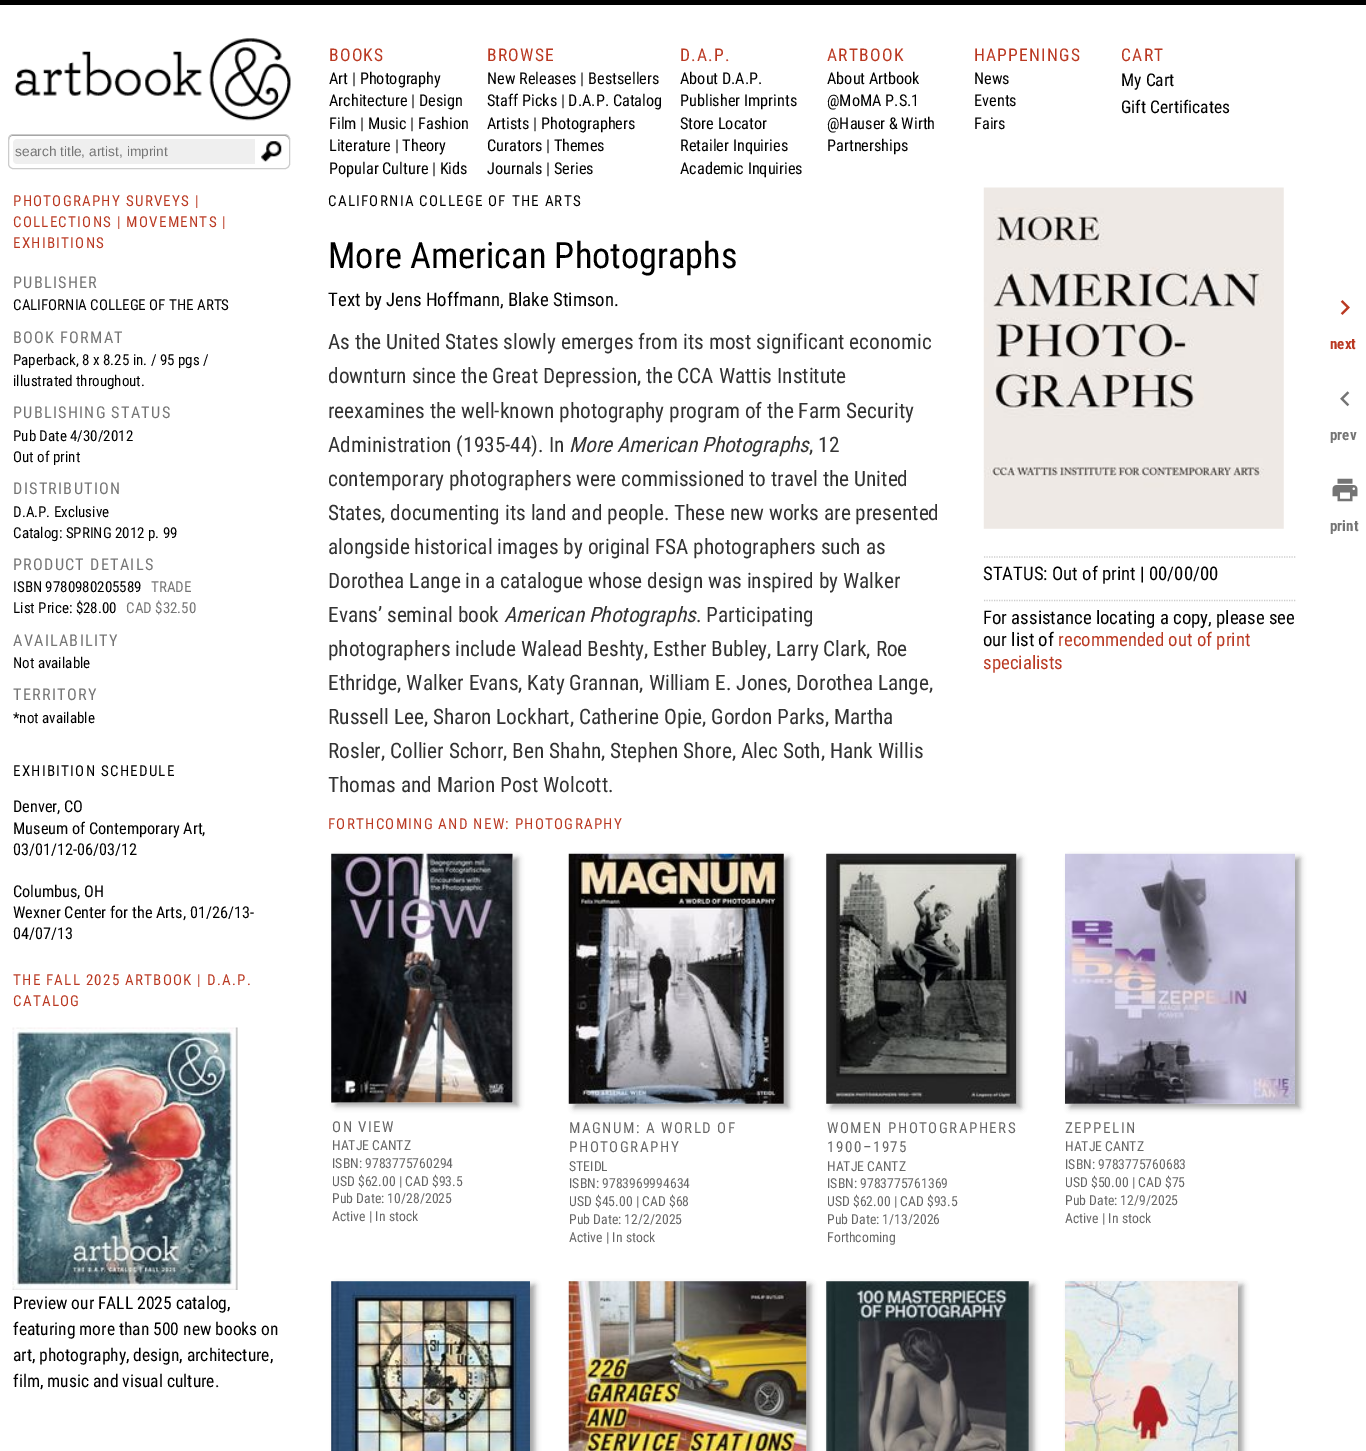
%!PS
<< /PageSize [1366 1451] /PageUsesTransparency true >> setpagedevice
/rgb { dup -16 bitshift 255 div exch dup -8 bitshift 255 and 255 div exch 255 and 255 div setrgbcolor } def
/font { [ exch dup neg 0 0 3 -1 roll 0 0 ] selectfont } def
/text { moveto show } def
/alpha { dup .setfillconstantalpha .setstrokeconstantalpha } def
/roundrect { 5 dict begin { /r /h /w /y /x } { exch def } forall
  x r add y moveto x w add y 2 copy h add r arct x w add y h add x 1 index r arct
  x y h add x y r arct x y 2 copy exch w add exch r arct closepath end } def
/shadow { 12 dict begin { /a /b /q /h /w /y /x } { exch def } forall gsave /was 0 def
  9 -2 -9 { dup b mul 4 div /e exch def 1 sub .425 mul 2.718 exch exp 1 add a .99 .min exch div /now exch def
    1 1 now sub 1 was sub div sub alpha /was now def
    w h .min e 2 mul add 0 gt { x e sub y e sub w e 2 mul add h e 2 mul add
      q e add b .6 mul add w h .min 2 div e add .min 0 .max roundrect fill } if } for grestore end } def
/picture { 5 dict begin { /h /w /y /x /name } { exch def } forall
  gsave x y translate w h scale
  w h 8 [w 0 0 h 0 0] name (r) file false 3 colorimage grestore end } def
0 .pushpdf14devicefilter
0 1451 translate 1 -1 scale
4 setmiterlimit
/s1 { /LiberationSans-Regular 13.75 font 16#757575 rgb } def
/s2 { /RobotoCondensed-Regular 16.25 font 16#000000 rgb } def
/s3 { /RobotoCondensed-Regular 17.5 font 16#000000 rgb } def
/s4 { /RobotoCondensed-Regular 15 font 16#000000 rgb } def
/s5 { /RobotoCondensed-Regular 15 font 16#757575 rgb } def
/s6 { /RobotoCondensed-Regular 36.25 font 16#000000 rgb } def
/s7 { /RobotoCondensed-Regular 18.75 font 16#000000 rgb } def
/s8 { /RobotoCondensed-Regular 21.25 font 16#333333 rgb } def
/s9 { /RobotoCondensed-Italic 21.25 font 16#333333 rgb } def
/s10 { /RobotoCondensed-Regular 18.75 font 16#BA3922 rgb } def
/s11 { /RobotoCondensed-Regular 13.75 font 16#666666 rgb } def
/s12 { /RobotoCondensed-Bold 15 font 16#BA3922 rgb } def
/s13 { /RobotoCondensed-Bold 15 font 16#757575 rgb } def
16#FFFFFF rgb
0 0 1366 1451 rectfill
16#000000 rgb
0 0 1366 5 rectfill
(pic1.raw) 14 38 277 83 picture
16#999999 rgb
12 136 moveto 285 136 lineto 287 136 289 138 289 140 curveto 289 137 288 135 285 135 curveto 13 135 lineto 10 135 9 137 9 140 curveto 9 138 10 136 12 136 curveto closepath fill
16#CCCCCC rgb
8.5 134.5 281 34 4.5 roundrect stroke
16#EFEFEF rgb
17 139 moveto 255 139 lineto 255 164 lineto 17 164 lineto 15 164 13 162 13 160 curveto 13 143 lineto 13 141 15 139 17 139 curveto closepath fill
s1
(search title, artist, imprint) 15 156 text
(pic2.raw) 261 141 21 21 picture
/RobotoCondensed-Regular 17.5 font
16#BA3922 rgb
329 61 moveto 1.25 0 (BOOKS) ashow
s2
(Art | Photography) 329 84 text
(Architecture | Design) 329 106 text
(Film | Music | Fashion) 329 129 text
(Literature | Theory) 329 151 text
(Popular Culture | Kids) 329 174 text
/RobotoCondensed-Regular 17.5 font
16#BA3922 rgb
487 61 moveto 1.25 0 (BROWSE) ashow
s2
(New Releases | Bestsellers) 487 84 text
(Staff Picks | D.A.P. Catalog) 487 106 text
(Artists | Photographers) 487 129 text
(Curators | Themes) 487 151 text
(Journals | Series) 487 174 text
/RobotoCondensed-Regular 17.5 font
16#BA3922 rgb
680 61 moveto 1.25 0 (D.A.P.) ashow
s2
(About D.A.P.) 680 84 text
(Publisher Imprints) 680 106 text
(Store Locator) 680 129 text
(Retailer Inquiries) 680 151 text
(Academic Inquiries) 680 174 text
/RobotoCondensed-Regular 17.5 font
16#BA3922 rgb
827 61 moveto 1.25 0 (ARTBOOK) ashow
s2
(About Artbook) 827 84 text
(@MoMA P.S.1) 827 106 text
(@Hauser & Wirth) 827 129 text
(Partnerships) 827 151 text
/RobotoCondensed-Regular 17.5 font
16#BA3922 rgb
974 61 moveto 1.25 0 (HAPPENINGS) ashow
s2
(News) 974 84 text
(Events) 974 106 text
(Fairs) 974 129 text
/RobotoCondensed-Regular 17.5 font
16#BA3922 rgb
1121 61 moveto 1.25 0 (CART) ashow
s3
(My Cart) 1121 86 text
(Gift Certificates) 1121 113 text
/RobotoCondensed-Regular 15 font
16#BA3922 rgb
13 206 moveto 1.25 0 (PHOTOGRAPHY SURVEYS |) ashow
13 227 moveto 1.25 0 (COLLECTIONS | MOVEMENTS |) ashow
13 248 moveto 1.25 0 (EXHIBITIONS) ashow
/RobotoCondensed-Regular 16.25 font
16#757575 rgb
13 288 moveto 1.25 0 (PUBLISHER) ashow
s4
(CALIFORNIA COLLEGE OF THE ARTS) 13 310 text
/RobotoCondensed-Regular 16.25 font
16#757575 rgb
13 343 moveto 1.25 0 (BOOK FORMAT) ashow
s4
(Paperback, 8 x 8.25 in. / 95 pgs /) 13 365 text
(illustrated throughout.) 13 386 text
/RobotoCondensed-Regular 16.25 font
16#757575 rgb
13 418 moveto 1.25 0 (PUBLISHING STATUS) ashow
s4
(Pub Date 4/30/2012) 13 441 text
(Out of print) 13 462 text
/RobotoCondensed-Regular 16.25 font
16#757575 rgb
13 494 moveto 1.25 0 (DISTRIBUTION) ashow
s4
(D.A.P. Exclusive) 13 517 text
(Catalog: SPRING 2012 p. 99) 13 538 text
/RobotoCondensed-Regular 16.25 font
16#757575 rgb
13 570 moveto 1.25 0 (PRODUCT DETAILS) ashow
s4
(ISBN 9780980205589) 13 592 text
s5
(TRADE) 151 592 text
s4
(List Price: $28.00) 13 613 text
s5
(CAD $32.50) 126 613 text
/RobotoCondensed-Regular 16.25 font
13 646 moveto 1.25 0 (AVAILABILITY) ashow
s4
(Not available) 13 668 text
/RobotoCondensed-Regular 16.25 font
16#757575 rgb
13 700 moveto 1.25 0 (TERRITORY) ashow
s4
(*not available) 13 723 text
13 776 moveto 1.25 0 (EXHIBITION SCHEDULE) ashow
s2
(Denver, CO) 13 812 text
(Museum of Contemporary Art,) 13 834 text
(03/01/12-06/03/12) 13 855 text
(Columbus, OH) 13 897 text
(Wexner Center for the Arts, 01/26/13-) 13 918 text
(04/07/13) 13 939 text
/RobotoCondensed-Regular 15 font
16#BA3922 rgb
13 985 moveto 1.25 0 (THE FALL 2025 ARTBOOK | D.A.P.) ashow
13 1006 moveto 1.25 0 (CATALOG) ashow
(pic3.raw) 12 1027 226 263 picture
s3
(Preview our FALL 2025 catalog,) 13 1309 text
(featuring more than 500 new books on) 13 1335 text
(art, photography, design, architecture,) 13 1361 text
(film, music and visual culture.) 13 1387 text
/RobotoCondensed-Regular 15 font
328 206 moveto 1.25 0 (CALIFORNIA COLLEGE OF THE ARTS) ashow
s6
(More American Photographs) 328 268 text
s7
(Text by Jens Hoffmann, Blake Stimson.) 328 306 text
s8
(As the United States slowly emerges from its most significant economic) 328 349 text
(downturn since the Great Depression, the CCA Wattis Institute) 328 383 text
(reexamines the well-known photography program of the Farm Security) 328 418 text
(Administration \(1935-44\). In) 328 452 text
s9
(More American Photographs) 569 452 text
s8
(, 12) 809 452 text
(contemporary photographers were commissioned to travel the United) 328 486 text
(States, documenting its land and people. These new works are presented) 328 520 text
(alongside historical images by original FSA photographers such as) 328 554 text
(Dorothea Lange in a catalogue whose design was inspired by Walker) 328 588 text
(Evans’ seminal book) 328 622 text
s9
(American Photographs) 504 622 text
s8
(. Participating) 696 622 text
(photographers include Walead Beshty, Esther Bubley, Larry Clark, Roe) 328 656 text
(Ethridge, Walker Evans, Katy Grannan, William E. Jones, Dorothea Lange,) 328 690 text
(Russell Lee, Sharon Lockhart, Catherine Opie, Gordon Parks, Martha) 328 724 text
(Rosler, Collier Schorr, Ben Shahn, Stephen Shore, Alec Soth, Hank Willis) 328 758 text
(Thomas and Marion Post Wolcott.) 328 792 text
(pic4.raw) 983 187 301 342 picture
16#CCCCCC rgb
1.2 setlinewidth
[1.25 1.25] 0 setdash
984 557 moveto 1296 557 lineto stroke
s7
(STATUS: Out of print | 00/00/00) 983 580 text
16#CCCCCC rgb
984 600.5 moveto 1296 600.5 lineto stroke
s7
(For assistance locating a copy, please see) 983 624 text
(our list of) 983 646 text
s10
(recommended out of print) 1058 646 text
(specialists) 983 669 text
/RobotoCondensed-Regular 15 font
328 829 moveto 1.25 0 (FORTHCOMING AND NEW: PHOTOGRAPHY) ashow
16#A3A3A3 rgb
336 858 182 248 0 3 1 shadow
16#EBEBEB rgb
331 854 182 249 rectfill
(pic5.raw) 331 853 182 250 picture
16#666666 rgb
332 1132 moveto 1.5 0 (ON VIEW) ashow
s11
(HATJE CANTZ) 332 1150 text
(ISBN: 9783775760294) 332 1168 text
(USD $62.00 | CAD $93.5) 332 1186 text
(Pub Date: 10/28/2025) 332 1203 text
(Active | In stock) 332 1221 text
16#A3A3A3 rgb
574 858 215 250 0 3 1 shadow
16#EBEBEB rgb
569 854 215 250 rectfill
(pic6.raw) 568 853 216 251 picture
/RobotoCondensed-Regular 15 font
16#666666 rgb
569 1133 moveto 1.5 0 (MAGNUM: A WORLD OF) ashow
569 1152 moveto 1.5 0 (PHOTOGRAPHY) ashow
s11
(STEIDL) 569 1171 text
(ISBN: 9783969994634) 569 1188 text
(USD $45.00 | CAD $68) 569 1206 text
(Pub Date: 12/2/2025) 569 1224 text
(Active | In stock) 569 1242 text
16#A3A3A3 rgb
831 858 190 250 0 3 1 shadow
16#EBEBEB rgb
826 854 190 250 rectfill
(pic7.raw) 826 853 191 251 picture
/RobotoCondensed-Regular 15 font
16#666666 rgb
827 1133 moveto 1.5 0 (WOMEN PHOTOGRAPHERS) ashow
827 1152 moveto 1.5 0 (1900–1975) ashow
s11
(HATJE CANTZ) 827 1171 text
(ISBN: 9783775761369) 827 1188 text
(USD $62.00 | CAD $93.5) 827 1206 text
(Pub Date: 1/13/2026) 827 1224 text
(Forthcoming) 827 1242 text
16#A3A3A3 rgb
1070 858 230 250 0 3 1 shadow
(pic8.raw) 1065 853 230 251 picture
/RobotoCondensed-Regular 15 font
16#666666 rgb
1065 1133 moveto 1.5 0 (ZEPPELIN) ashow
s11
(HATJE CANTZ) 1065 1151 text
(ISBN: 9783775760683) 1065 1169 text
(USD $50.00 | CAD $75) 1065 1187 text
(Pub Date: 12/9/2025) 1065 1205 text
(Active | In stock) 1065 1223 text
16#A3A3A3 rgb
336 1285 199 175 0 3 1 shadow
16#EBEBEB rgb
331 1281 199 170 rectfill
(pic9.raw) 331 1281 199 170 picture
16#A3A3A3 rgb
574 1285 237 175 0 3 1 shadow
(pic10.raw) 568 1281 239 170 picture
831 1285 203 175 0 3 1 shadow
16#EBEBEB rgb
826 1281 203 170 rectfill
(pic11.raw) 826 1281 203 170 picture
16#A3A3A3 rgb
1070 1285 173 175 0 3 1 shadow
16#EBEBEB rgb
1065 1281 173 170 rectfill
(pic12.raw) 1065 1281 173 170 picture
(pic13.raw) 1340 300 10 15 picture
s12
(next) 1330 349 text
(pic14.raw) 1340 391 10 16 picture
s13
(prev) 1330 440 text
(pic15.raw) 1332 478 26 24 picture
(print) 1330 531 text
.poppdf14devicefilter showpage
